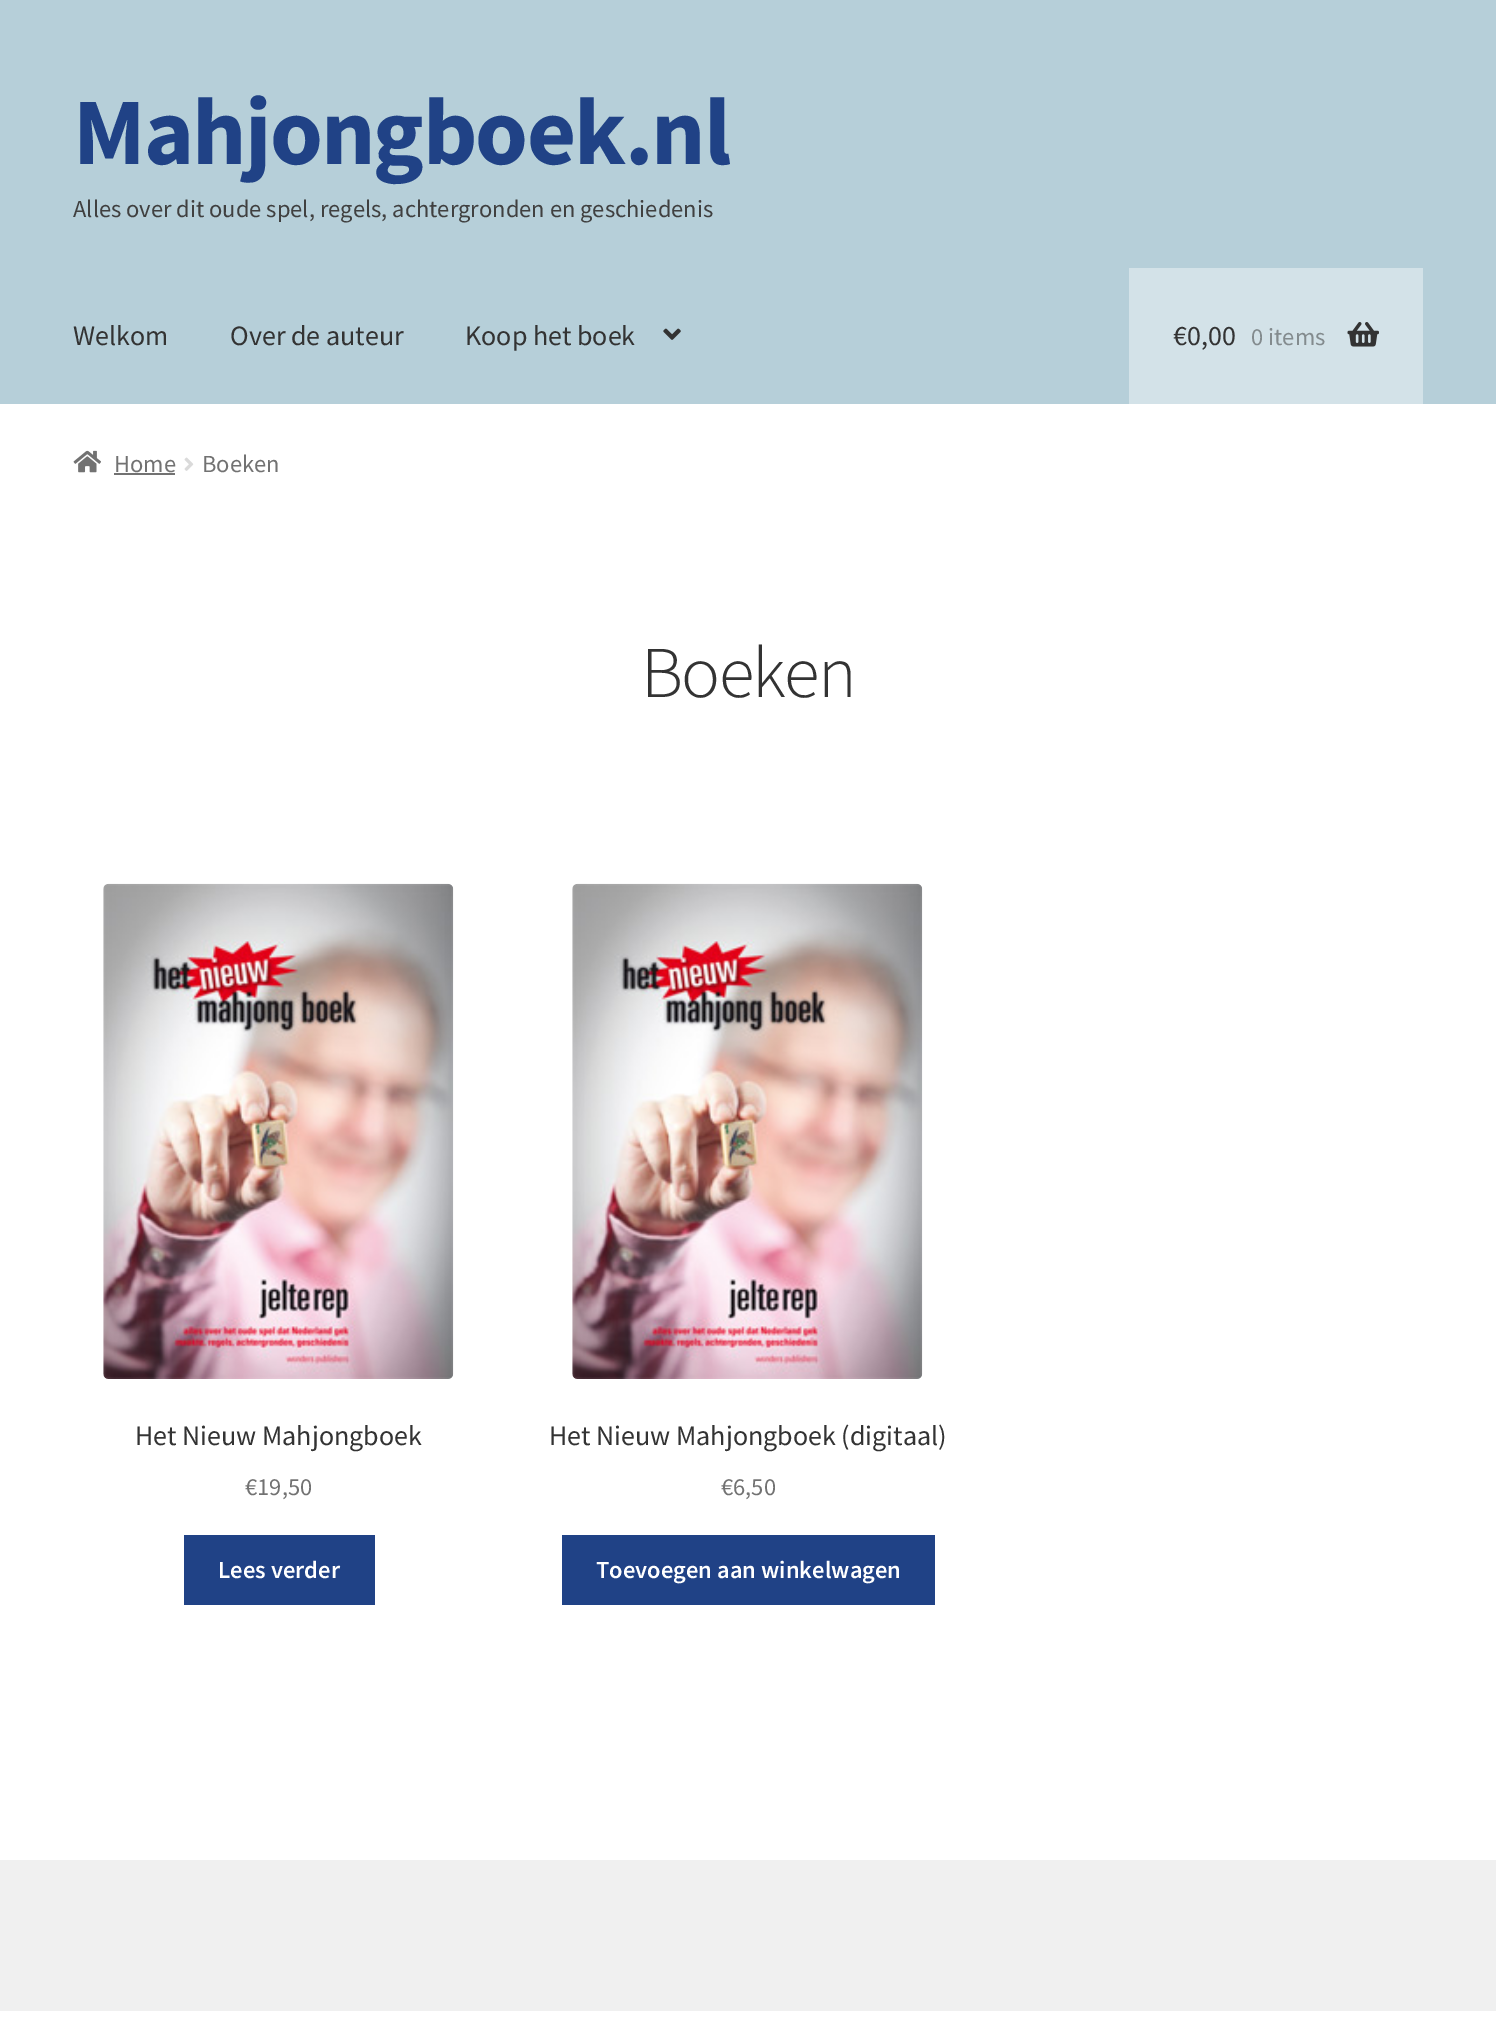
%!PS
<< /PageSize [1496 2030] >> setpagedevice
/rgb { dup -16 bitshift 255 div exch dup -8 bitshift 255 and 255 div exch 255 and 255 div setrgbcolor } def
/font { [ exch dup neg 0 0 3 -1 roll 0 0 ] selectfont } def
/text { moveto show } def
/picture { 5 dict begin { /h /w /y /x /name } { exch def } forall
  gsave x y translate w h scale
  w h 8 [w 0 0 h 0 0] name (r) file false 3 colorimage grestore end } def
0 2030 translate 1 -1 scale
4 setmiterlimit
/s1 { /SourceSansPro-Regular 24.5 font 16#404040 rgb } def
/s2 { /SourceSansPro-Regular 28 font 16#333333 rgb } def
/s3 { /SourceSansPro-Regular 24.5 font 16#838B8E rgb } def
/s4 { /SourceSansPro-Regular 24.5 font 16#727272 rgb } def
/s5 { /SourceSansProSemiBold-SemiBold 24.5 font 16#FFFFFF rgb } def
16#FFFFFF rgb
0 0 1496 2030 rectfill
16#B6CFD9 rgb
0 0 1496 404 rectfill
/SourceSansPro-Bold 95.25 font
16#204286 rgb
73 164 moveto -1.75 0 (Mahjongboek.nl) ashow
s1
(Alles over dit oude spel, regels, achtergronden en geschiedenis) 73 217 text
s2
(Welkom) 73 345 text
(Over de auteur) 230 345 text
(Koop het boek) 465 345 text
(pic1.raw) 663 328 18 12 picture
16#D3E2E8 rgb
1129 268 294 136 rectfill
s2
(€0,00) 1173 345 text
s3
(0 items) 1251 345 text
(pic2.raw) 1347 322 32 25 picture
(pic3.raw) 73 450 28 23 picture
s4
(Home) 114 472 text
114 473 61 2 rectfill
(pic4.raw) 184 457 10 14 picture
(Boeken) 202 472 text
/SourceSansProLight-Light 73 font
16#333333 rgb
641 697 moveto -1.75 0 (Boeken) ashow
(pic5.raw) 103 883 351 496 picture
s2
(Het Nieuw Mahjongboek) 135 1445 text
s4
(€19,50) 245 1495 text
16#204286 rgb
184 1535 191 70 rectfill
s5
(Lees verder) 218 1578 text
(pic6.raw) 572 883 351 496 picture
s2
(Het Nieuw Mahjongboek \(digitaal\)) 549 1445 text
s4
(€6,50) 721 1495 text
16#204286 rgb
562 1535 373 70 rectfill
s5
(Toevoegen aan winkelwagen) 596 1578 text
16#F0F0F0 rgb
0 1860 1496 151 rectfill
showpage
